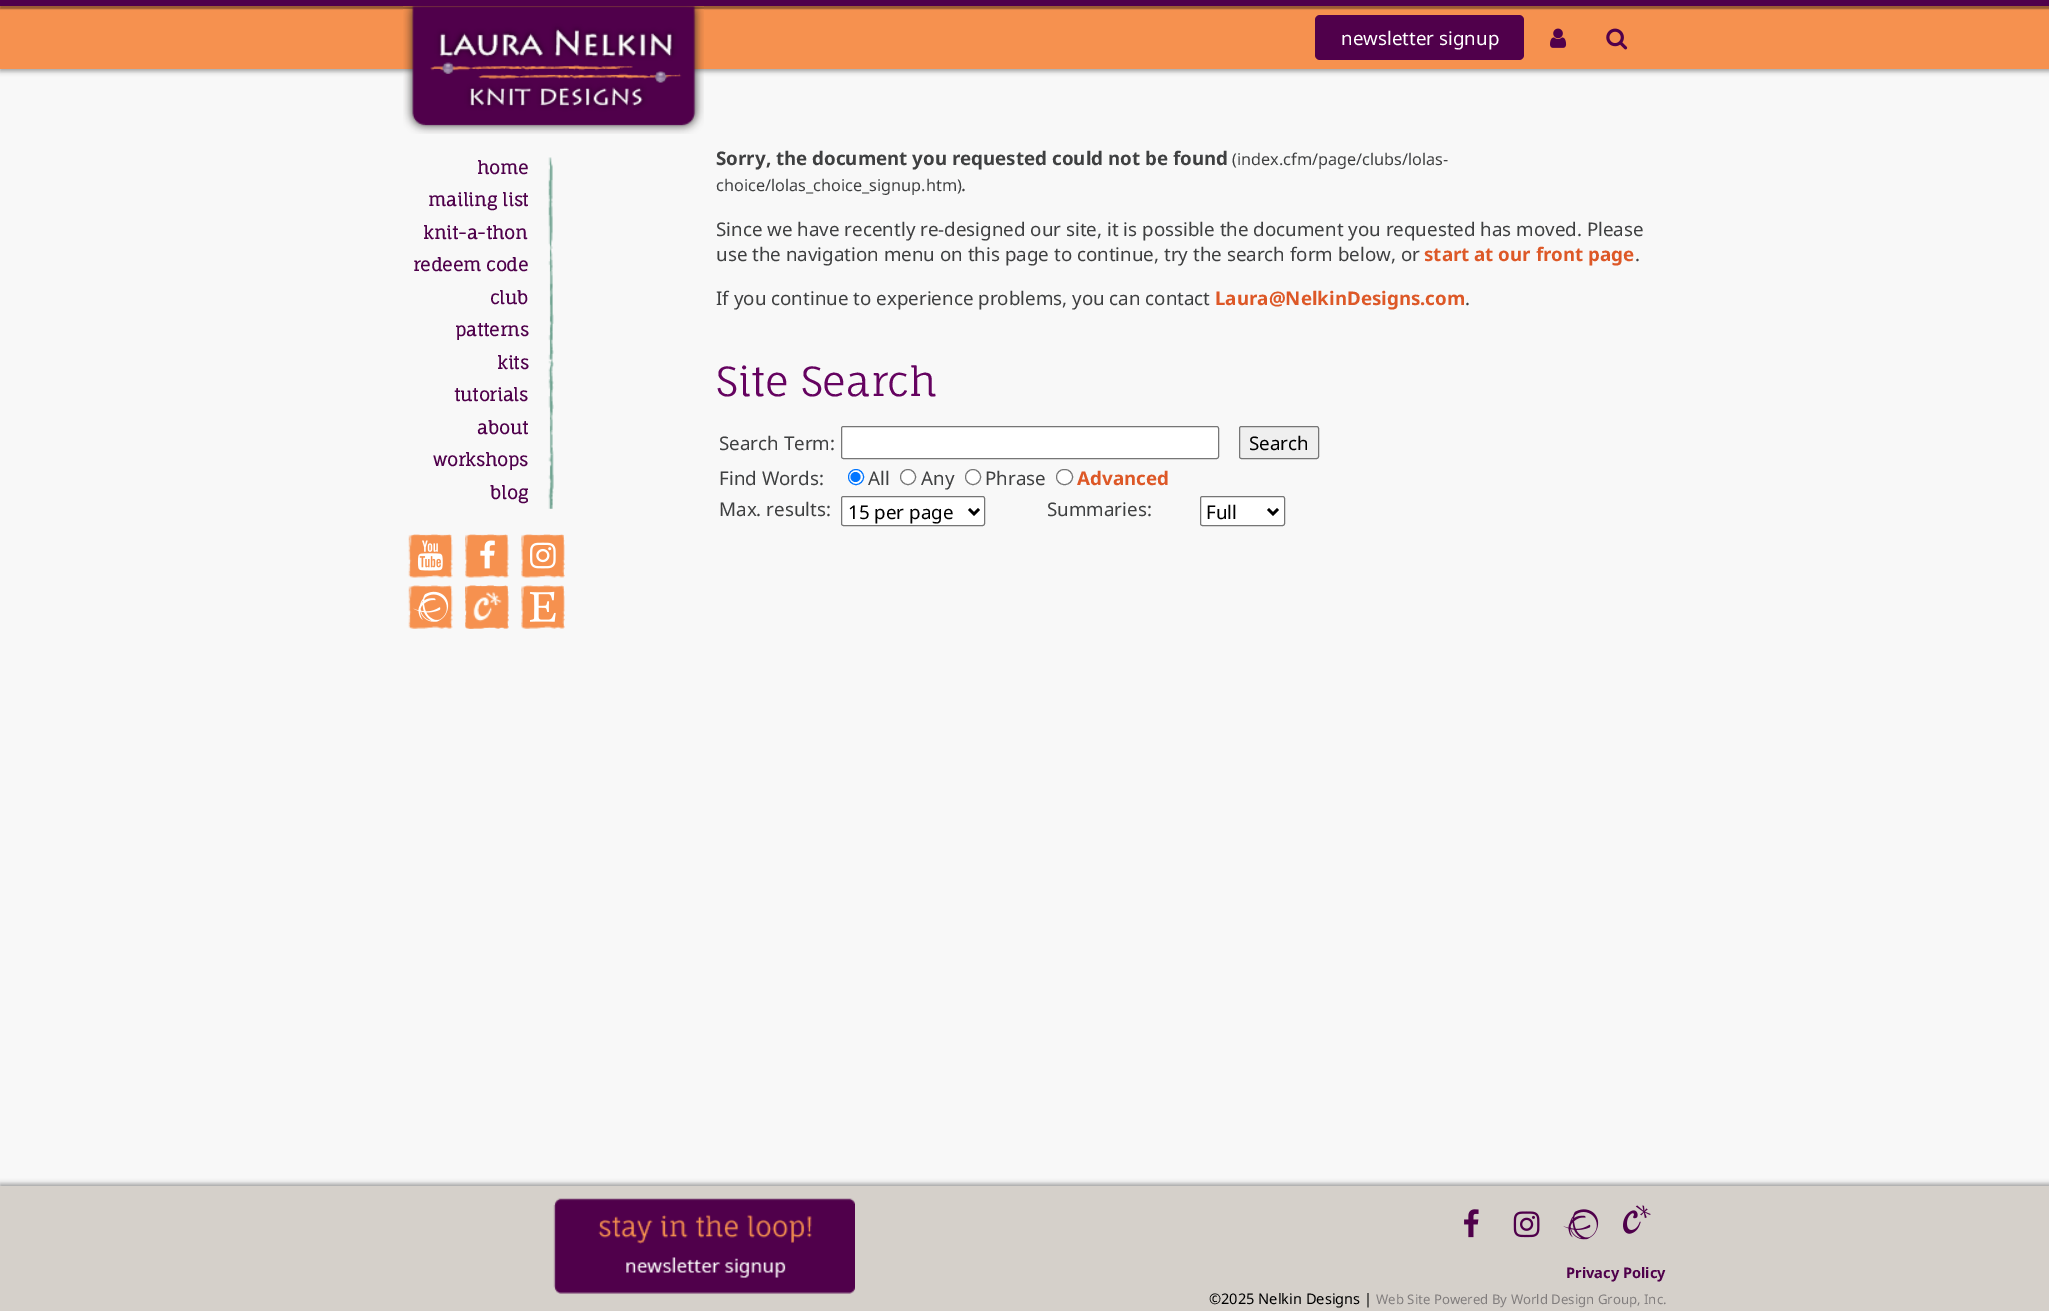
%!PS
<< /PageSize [2049 1311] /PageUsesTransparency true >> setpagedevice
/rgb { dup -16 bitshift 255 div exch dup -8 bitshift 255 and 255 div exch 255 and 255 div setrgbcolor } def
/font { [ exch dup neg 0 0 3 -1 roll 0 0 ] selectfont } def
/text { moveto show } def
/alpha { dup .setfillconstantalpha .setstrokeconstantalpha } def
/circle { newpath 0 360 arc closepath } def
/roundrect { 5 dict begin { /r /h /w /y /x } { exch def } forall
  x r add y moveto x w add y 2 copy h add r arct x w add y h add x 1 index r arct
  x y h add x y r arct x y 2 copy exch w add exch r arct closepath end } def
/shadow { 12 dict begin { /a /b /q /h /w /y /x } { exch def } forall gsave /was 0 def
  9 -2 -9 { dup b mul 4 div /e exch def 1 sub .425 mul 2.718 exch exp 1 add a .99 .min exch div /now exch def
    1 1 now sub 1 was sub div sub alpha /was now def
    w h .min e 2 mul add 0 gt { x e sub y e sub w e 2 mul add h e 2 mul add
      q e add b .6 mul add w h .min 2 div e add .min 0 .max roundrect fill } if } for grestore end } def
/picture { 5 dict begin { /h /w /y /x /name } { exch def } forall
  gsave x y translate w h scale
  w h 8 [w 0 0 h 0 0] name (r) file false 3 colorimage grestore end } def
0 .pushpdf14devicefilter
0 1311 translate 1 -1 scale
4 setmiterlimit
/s1 { /NotoSans-Regular 18.75 font 16#FFFFFF rgb } def
/s2 { /FaunaOne-Bold 17.5 font 16#4F004B rgb } def
/s3 { /NotoSans-Bold 18.75 font 16#3F4041 rgb } def
/s4 { /NotoSans-Regular 16.25 font 16#3F4041 rgb } def
/s5 { /NotoSans-Regular 18.75 font 16#3F4041 rgb } def
/s6 { /NotoSans-Bold 18.75 font 16#DD5827 rgb } def
/s7 { /FaunaOne-Regular 40 font 16#650360 rgb } def
/s8 { /NotoSans-Regular 18.75 font 16#000000 rgb } def
/s9 { /NotoSans-Bold 14.6 font 16#4F004B rgb } def
/s10 { /NotoSans-Regular 14.6 font 16#000000 rgb } def
/s11 { /NotoSans-Regular 13.2 font 16#817D7D rgb } def
16#F8F8F8 rgb
0 0 2049 1311 rectfill
16#000000 rgb
0 3 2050 68 0 2.5 0.37 shadow
16#F6914F rgb
0 6 2049 63 rectfill
16#000000 rgb
0 3 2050 6 0 0.5 0.37 shadow
16#50004B rgb
0 0 2049 6 rectfill
1315 15 209 45 5 roundrect fill
s1
(newsletter signup) 1341 45 text
(pic1.raw) 1550 28 17 20 picture
(pic2.raw) 1606 28 22 22 picture
(pic3.raw) 403 6 301 128 picture
(pic4.raw) 548 157 6 352 picture
s2
(home) 477 174 text
(mailing list) 428 206 text
(knit-a-thon) 423 239 text
(redeem code) 413 271 text
(club) 490 304 text
(patterns) 455 336 text
(kits) 497 369 text
(tutorials) 454 401 text
(about) 477 434 text
(workshops) 433 466 text
(blog) 490 499 text
(pic5.raw) 408 534 45 44 picture
(pic6.raw) 417 540 26 31 picture
(pic7.raw) 465 534 44 44 picture
(pic8.raw) 480 540 15 29 picture
(pic9.raw) 521 534 44 44 picture
(pic10.raw) 530 542 26 27 picture
(pic11.raw) 408 585 45 44 picture
(pic12.raw) 413 591 36 31 picture
(pic13.raw) 465 585 44 44 picture
(pic14.raw) 465 585 44 44 picture
(pic15.raw) 521 585 44 44 picture
(pic16.raw) 530 591 26 31 picture
s3
(Sorry, the document you requested could not be found) 716 165 text
s4
(\(index.cfm/page/clubs/lolas-) 1232 165 text
(choice/lolas_choice_signup.htm\)) 716 191 text
s5
(.) 961 191 text
(Since we have recently re-designed our site, it is possible the document you requested has moved. Please) 716 236 text
(use the navigation menu on this page to continue, try the search form below, or) 716 261 text
s6
(start at our front page) 1424 261 text
s5
(.) 1635 261 text
(If you continue to experience problems, you can contact) 716 305 text
s6
(Laura@NelkinDesigns.com) 1215 305 text
s5
(.) 1465 305 text
s7
(Site Search) 716 396 text
s5
(Search Term:) 719 450 text
16#FFFFFF rgb
841.5 426.5 377 32 2 roundrect gsave fill grestore
16#767676 rgb
stroke
16#EFEFEF rgb
1239.5 426.5 79 32 2 roundrect gsave fill grestore
16#767676 rgb
stroke
s8
(Search) 1249 450 text
s5
(Find Words:) 719 485 text
16#FFFFFF rgb
856 477 7.5 circle gsave fill grestore
16#0075FF rgb
stroke
855.5 477 5 circle fill
s5
(All) 868 485 text
16#FFFFFF rgb
908 477 7.5 circle gsave fill grestore
16#767676 rgb
stroke
s5
(Any) 921 485 text
16#FFFFFF rgb
973 477 7.5 circle gsave fill grestore
16#767676 rgb
stroke
s5
(Phrase) 985 485 text
16#FFFFFF rgb
1056.5 469.5 16 15 7.5 roundrect gsave fill grestore
16#767676 rgb
stroke
s6
(Advanced) 1077 485 text
s5
(Max. results:) 719 516 text
16#FFFFFF rgb
841.5 496.5 143 29 2 roundrect gsave fill grestore
16#767676 rgb
stroke
16#000000 rgb
2.5 setlinewidth
969 509 moveto 974 514 lineto 979 509 lineto stroke
(15 per page) 848 519 text
s5
(Summaries:) 1047 516 text
16#FFFFFF rgb
1200.5 496.5 84 29 2 roundrect gsave fill grestore
16#767676 rgb
1 setlinewidth
stroke
16#000000 rgb
2.5 setlinewidth
1268 509 moveto 1273 514 lineto 1278 509 lineto stroke
(Full) 1206 519 text
0 1184 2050 125 0 2.5 0.37 shadow
16#D5D0CA rgb
0 1186 2049 125 rectfill
(pic17.raw) 553 1198 302 96 picture
(pic18.raw) 1464 1209 15 29 picture
(pic19.raw) 1513 1211 27 27 picture
(pic20.raw) 1563 1209 36 31 picture
(pic21.raw) 1623 1205 28 29 picture
s9
(Privacy Policy) 1566 1278 text
s10
(©2025 Nelkin Designs |) 1209 1304 text
s11
(Web Site Powered By World Design Group, Inc.) 1376 1304 text
.poppdf14devicefilter showpage
